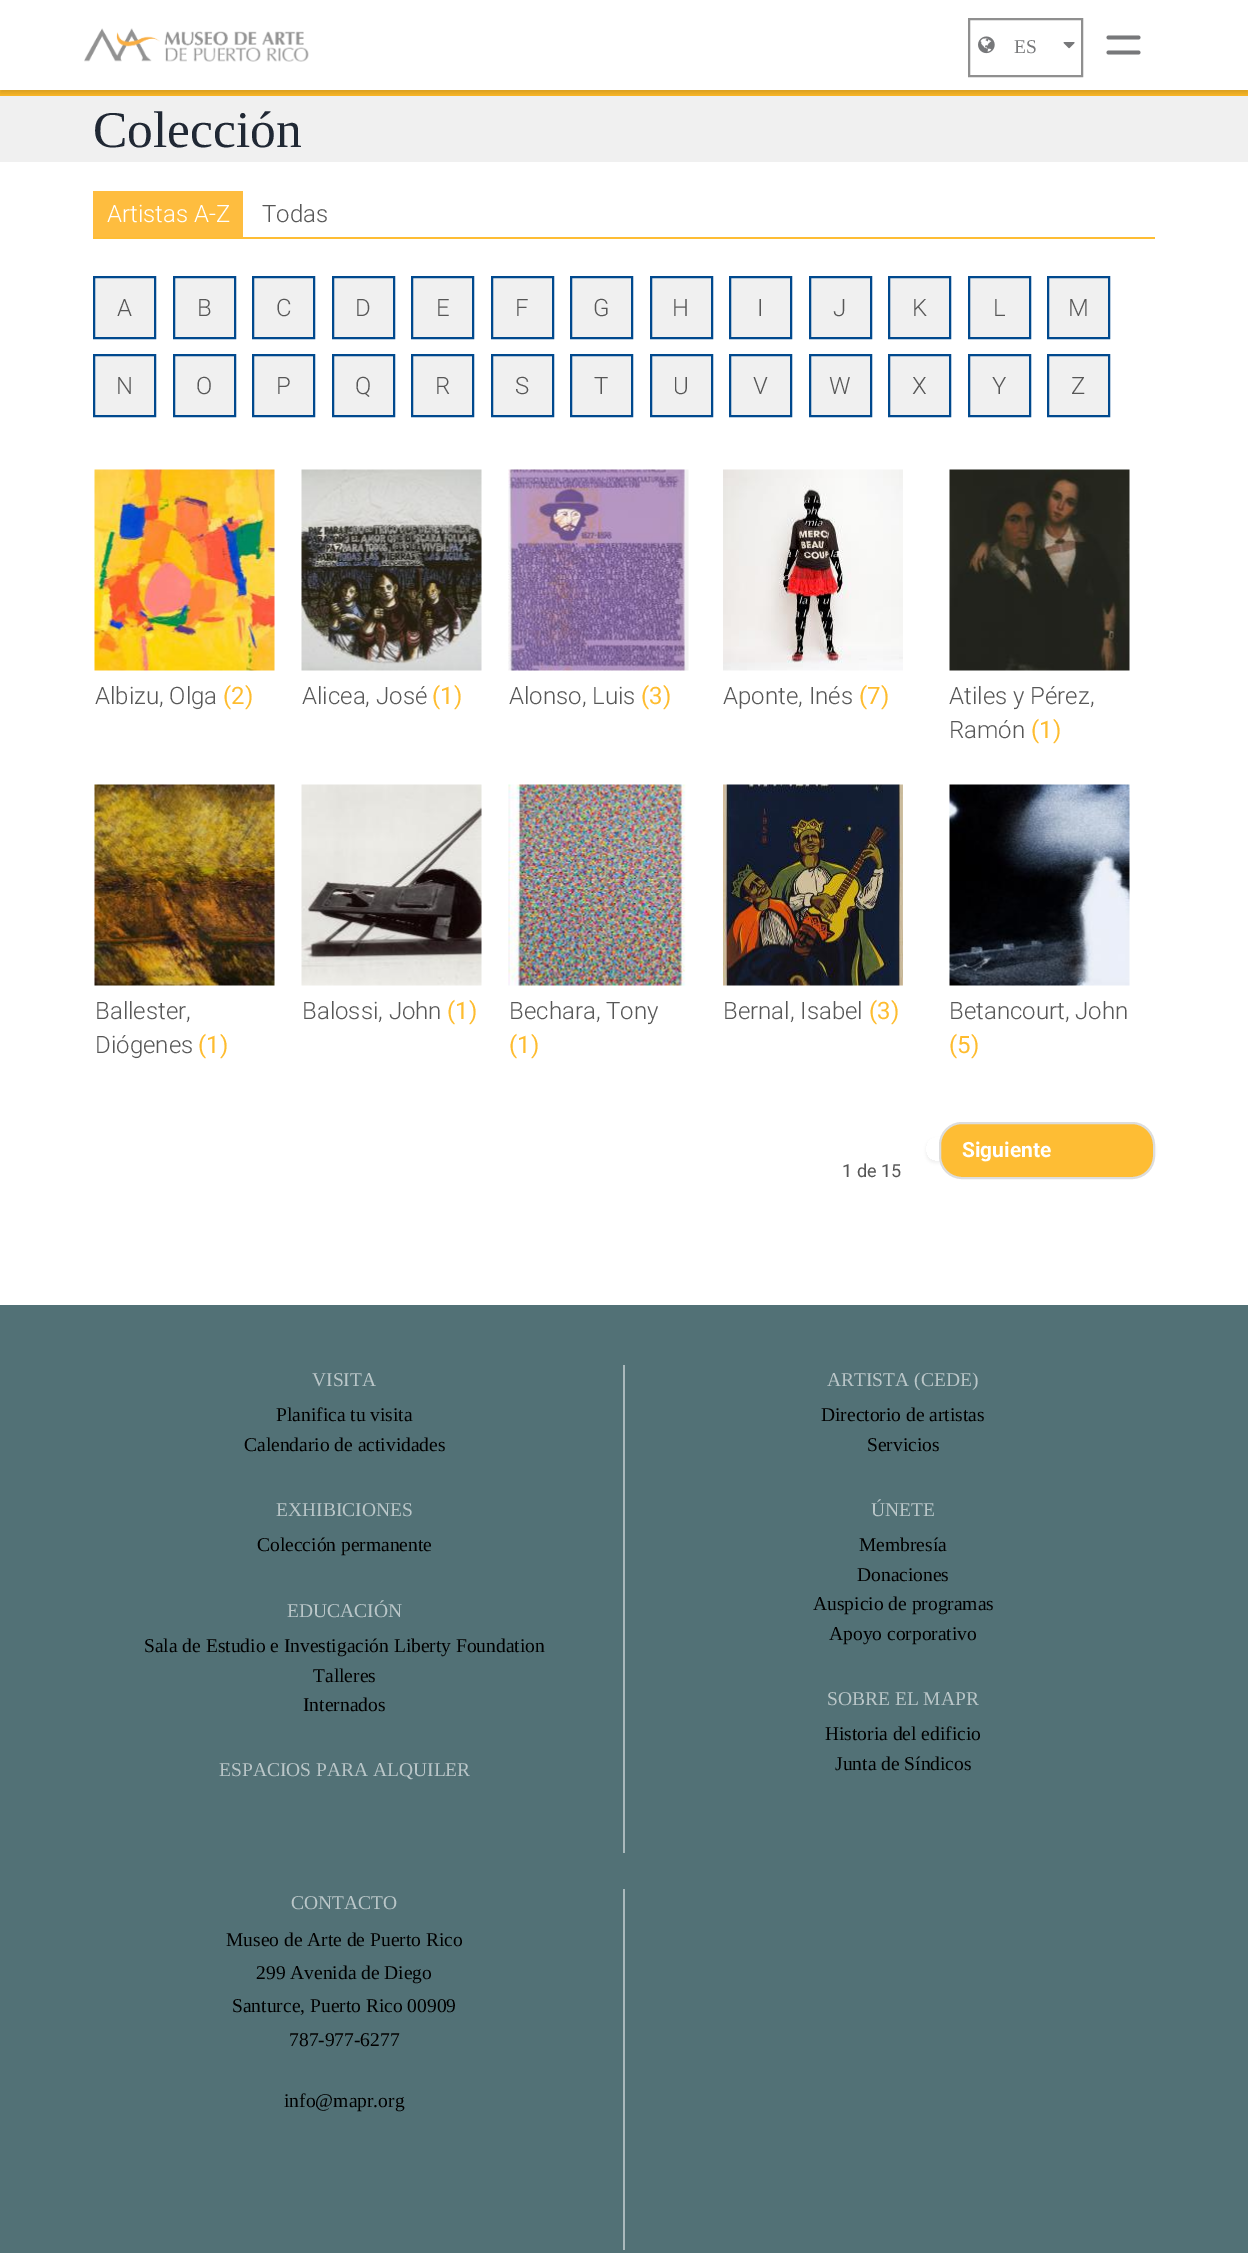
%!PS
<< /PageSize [1248 2253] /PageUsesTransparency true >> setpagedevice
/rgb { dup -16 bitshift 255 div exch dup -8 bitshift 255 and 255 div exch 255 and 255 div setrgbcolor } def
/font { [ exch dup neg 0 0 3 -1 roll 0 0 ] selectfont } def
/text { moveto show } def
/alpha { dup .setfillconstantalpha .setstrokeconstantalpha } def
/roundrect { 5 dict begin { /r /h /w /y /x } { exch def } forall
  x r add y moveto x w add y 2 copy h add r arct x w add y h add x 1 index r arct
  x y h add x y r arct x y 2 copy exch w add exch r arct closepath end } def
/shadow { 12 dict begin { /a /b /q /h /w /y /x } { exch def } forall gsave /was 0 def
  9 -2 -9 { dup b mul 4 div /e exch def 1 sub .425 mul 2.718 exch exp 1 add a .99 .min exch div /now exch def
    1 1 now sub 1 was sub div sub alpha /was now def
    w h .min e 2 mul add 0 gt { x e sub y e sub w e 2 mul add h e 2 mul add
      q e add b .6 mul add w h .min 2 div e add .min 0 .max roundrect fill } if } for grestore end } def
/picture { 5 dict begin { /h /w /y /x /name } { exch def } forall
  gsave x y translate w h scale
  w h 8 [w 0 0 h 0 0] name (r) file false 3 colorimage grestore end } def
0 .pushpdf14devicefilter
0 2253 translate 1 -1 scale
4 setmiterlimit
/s1 { /LiberationSerif-Regular 19.5 font 16#77787A rgb } def
/s2 { /LiberationSerif-Regular 51.5 font 16#202834 rgb } def
/s3 { /Roboto-Light 24 font 16#FFFFFF rgb } def
/s4 { /Roboto-Light 24 font 16#575757 rgb } def
/s5 { /Roboto-Regular 24 font 16#FEBC2F rgb } def
/s6 { /Roboto-Bold 21 font 16#FFFFFF rgb } def
/s7 { /Roboto-Regular 18 font 16#575757 rgb } def
/s8 { /LiberationSerif-Regular 19.5 font 16#BAC6C8 rgb } def
/s9 { /LiberationSerif-Regular 19.5 font 16#000000 rgb } def
16#FFFFFF rgb
0 0 1248 2253 rectfill
16#F0F0F0 rgb
0 96 1248 66 rectfill
16#FEB926 rgb
0 90 1248 6 rectfill
gsave
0 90 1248 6 rectclip
16#000000 rgb
0 3 1248 90 0 3 0.16 shadow
grestore
(pic1.raw) 84 28 225 34 picture
(pic2.raw) 978 36 17 18 picture
(pic3.raw) 1063 42 12 7 picture
16#8F8F8F rgb
2 setlinewidth
969 19 113 57 rectstroke
s1
(ES) 1014 53 text
3.8 setlinewidth
1 setlinecap
1 setlinejoin
1108.5 37.5 moveto 1138.5 37.5 lineto 1108.5 52.5 moveto 1138.5 52.5 lineto stroke
s2
(Colección) 93 147 text
16#FEBD34 rgb
93 237 1062 2 rectfill
16#FEBD3F rgb
93 191 150 46 rectfill
s3
(Artistas A-Z) 107 222 text
s4
(Todas) 262 222 text
16#F0F0F0 rgb
94 277 moveto 155 277 lineto 155 338 lineto 94 338 lineto closepath gsave fill grestore
16#00498E rgb
2 setlinewidth
0 setlinecap
0 setlinejoin
stroke
s4
(A) 117 316 text
16#F0F0F0 rgb
174 277 moveto 235 277 lineto 235 338 lineto 174 338 lineto closepath gsave fill grestore
16#00498E rgb
stroke
s4
(B) 197 316 text
16#F0F0F0 rgb
253 277 moveto 314 277 lineto 314 338 lineto 253 338 lineto closepath gsave fill grestore
16#00498E rgb
stroke
s4
(C) 276 316 text
16#F0F0F0 rgb
333 277 moveto 394 277 lineto 394 338 lineto 333 338 lineto closepath gsave fill grestore
16#00498E rgb
stroke
s4
(D) 355 316 text
16#F0F0F0 rgb
412 277 moveto 473 277 lineto 473 338 lineto 412 338 lineto closepath gsave fill grestore
16#00498E rgb
stroke
s4
(E) 436 316 text
16#F0F0F0 rgb
492 277 moveto 553 277 lineto 553 338 lineto 492 338 lineto closepath gsave fill grestore
16#00498E rgb
stroke
s4
(F) 515 316 text
16#F0F0F0 rgb
571 277 moveto 632 277 lineto 632 338 lineto 571 338 lineto closepath gsave fill grestore
16#00498E rgb
stroke
s4
(G) 593 316 text
16#F0F0F0 rgb
651 277 moveto 712 277 lineto 712 338 lineto 651 338 lineto closepath gsave fill grestore
16#00498E rgb
stroke
s4
(H) 672 316 text
16#F0F0F0 rgb
730 277 moveto 791 277 lineto 791 338 lineto 730 338 lineto closepath gsave fill grestore
16#00498E rgb
stroke
s4
(I) 757 316 text
16#F0F0F0 rgb
810 277 moveto 871 277 lineto 871 338 lineto 810 338 lineto closepath gsave fill grestore
16#00498E rgb
stroke
s4
(J) 833 316 text
16#F0F0F0 rgb
889 277 moveto 950 277 lineto 950 338 lineto 889 338 lineto closepath gsave fill grestore
16#00498E rgb
stroke
s4
(K) 912 316 text
16#F0F0F0 rgb
969 277 moveto 1030 277 lineto 1030 338 lineto 969 338 lineto closepath gsave fill grestore
16#00498E rgb
stroke
s4
(L) 993 316 text
16#F0F0F0 rgb
1048 277 moveto 1109 277 lineto 1109 338 lineto 1048 338 lineto closepath gsave fill grestore
16#00498E rgb
stroke
s4
(M) 1068 316 text
16#F0F0F0 rgb
94 355 moveto 155 355 lineto 155 416 lineto 94 416 lineto closepath gsave fill grestore
16#00498E rgb
stroke
s4
(N) 116 394 text
16#F0F0F0 rgb
174 355 moveto 235 355 lineto 235 416 lineto 174 416 lineto closepath gsave fill grestore
16#00498E rgb
stroke
s4
(O) 196 394 text
16#F0F0F0 rgb
253 355 moveto 314 355 lineto 314 416 lineto 253 416 lineto closepath gsave fill grestore
16#00498E rgb
stroke
s4
(P) 276 394 text
16#F0F0F0 rgb
333 355 moveto 394 355 lineto 394 416 lineto 333 416 lineto closepath gsave fill grestore
16#00498E rgb
stroke
s4
(Q) 355 394 text
16#F0F0F0 rgb
412 355 moveto 473 355 lineto 473 416 lineto 412 416 lineto closepath gsave fill grestore
16#00498E rgb
stroke
s4
(R) 435 394 text
16#F0F0F0 rgb
492 355 moveto 553 355 lineto 553 416 lineto 492 416 lineto closepath gsave fill grestore
16#00498E rgb
stroke
s4
(S) 515 394 text
16#F0F0F0 rgb
571 355 moveto 632 355 lineto 632 416 lineto 571 416 lineto closepath gsave fill grestore
16#00498E rgb
stroke
s4
(T) 594 394 text
16#F0F0F0 rgb
651 355 moveto 712 355 lineto 712 416 lineto 651 416 lineto closepath gsave fill grestore
16#00498E rgb
stroke
s4
(U) 673 394 text
16#F0F0F0 rgb
730 355 moveto 791 355 lineto 791 416 lineto 730 416 lineto closepath gsave fill grestore
16#00498E rgb
stroke
s4
(V) 753 394 text
16#F0F0F0 rgb
810 355 moveto 871 355 lineto 871 416 lineto 810 416 lineto closepath gsave fill grestore
16#00498E rgb
stroke
s4
(W) 829 394 text
16#F0F0F0 rgb
889 355 moveto 950 355 lineto 950 416 lineto 889 416 lineto closepath gsave fill grestore
16#00498E rgb
stroke
s4
(X) 912 394 text
16#F0F0F0 rgb
969 355 moveto 1030 355 lineto 1030 416 lineto 969 416 lineto closepath gsave fill grestore
16#00498E rgb
stroke
s4
(Y) 992 394 text
16#F0F0F0 rgb
1048 355 moveto 1109 355 lineto 1109 416 lineto 1048 416 lineto closepath gsave fill grestore
16#00498E rgb
stroke
s4
(Z) 1071 394 text
(pic4.raw) 94 469 181 202 picture
(Albizu, Olga) 95 704 text
s5
(\(2\)) 223 704 text
(pic5.raw) 301 469 181 202 picture
s4
(Alicea, José) 302 704 text
s5
(\(1\)) 432 704 text
(pic6.raw) 508 469 181 202 picture
s4
(Alonso, Luis) 509 704 text
s5
(\(3\)) 641 704 text
(pic7.raw) 723 469 180 202 picture
s4
(Aponte, Inés) 723 704 text
s5
(\(7\)) 859 704 text
(pic8.raw) 949 469 181 202 picture
s4
(Atiles y Pérez,) 949 704 text
(Ramón) 949 738 text
s5
(\(1\)) 1031 738 text
(pic9.raw) 94 784 181 202 picture
s4
(Ballester,) 95 1019 text
(Diógenes) 95 1053 text
s5
(\(1\)) 198 1053 text
(pic10.raw) 301 784 181 202 picture
s4
(Balossi, John) 302 1019 text
s5
(\(1\)) 447 1019 text
(pic11.raw) 508 784 178 202 picture
s4
(Bechara, Tony) 509 1019 text
s5
(\(1\)) 509 1053 text
(pic12.raw) 723 784 180 202 picture
s4
(Bernal, Isabel) 723 1019 text
s5
(\(3\)) 869 1019 text
(pic13.raw) 949 784 181 202 picture
s4
(Betancourt, John) 949 1019 text
s5
(\(5\)) 949 1053 text
gsave
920 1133 moveto 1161 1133 lineto 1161 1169 lineto 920 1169 lineto closepath 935 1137 moveto 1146 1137 lineto 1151 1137 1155 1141 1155 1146 curveto 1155 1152 lineto 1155 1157 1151 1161 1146 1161 curveto 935 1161 lineto 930 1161 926 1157 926 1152 curveto 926 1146 lineto 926 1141 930 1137 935 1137 curveto closepath eoclip newpath
16#000000 rgb
926 1139 229 24 9 1.5 0.05 shadow
grestore
16#FEBD34 rgb
940 1123 214 55 22 roundrect gsave fill grestore
16#DDDDDD rgb
stroke
s6
(Siguiente) 962 1157 text
s7
(1 de 15) 842 1177 text
16#527176 rgb
0 1305 1248 948 rectfill
16#AAB9BC rgb
623 1365 2 488 rectfill
s8
(VISITA) 312 1386 text
s9
(Planifica tu visita) 276 1421 text
(Calendario de actividades) 244 1451 text
s8
(EXHIBICIONES) 276 1516 text
s9
(Colección permanente) 257 1551 text
s8
(EDUCACIÓN) 287 1617 text
s9
(Sala de Estudio e Investigación Liberty Foundation) 144 1652 text
(Talleres) 313 1682 text
(Internados) 303 1711 text
s8
(ESPACIOS PARA ALQUILER) 219 1776 text
(ARTISTA \(CEDE\)) 827 1386 text
s9
(Directorio de artistas) 821 1421 text
(Servicios) 867 1451 text
s8
(ÚNETE) 871 1516 text
s9
(Membresía) 859 1551 text
(Donaciones) 857 1581 text
(Auspicio de programas) 813 1610 text
(Apoyo corporativo) 829 1640 text
s8
(SOBRE EL MAPR) 827 1705 text
s9
(Historia del edificio) 825 1740 text
(Junta de Síndicos) 835 1770 text
16#AAB9BC rgb
623 1889 2 361 rectfill
s8
(CONTACTO) 291 1909 text
s9
(Museo de Arte de Puerto Rico) 226 1946 text
(299 Avenida de Diego) 256 1979 text
(Santurce, Puerto Rico 00909) 232 2012 text
(787-977-6277) 289 2046 text
(info@mapr.org) 284 2107 text
.poppdf14devicefilter showpage
